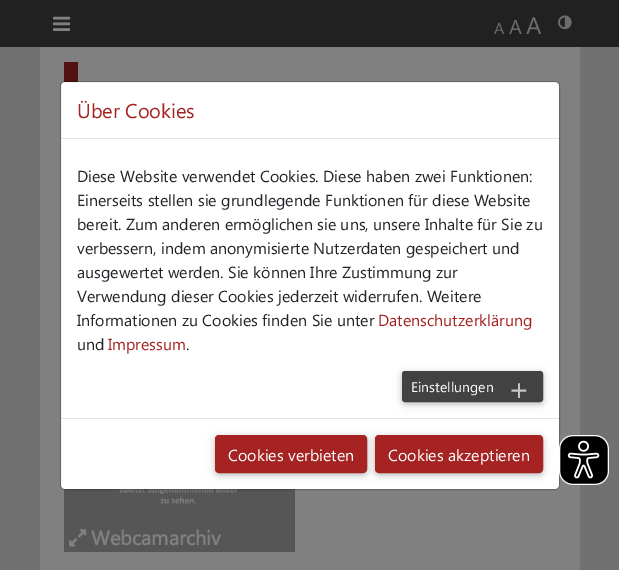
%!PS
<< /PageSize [619 570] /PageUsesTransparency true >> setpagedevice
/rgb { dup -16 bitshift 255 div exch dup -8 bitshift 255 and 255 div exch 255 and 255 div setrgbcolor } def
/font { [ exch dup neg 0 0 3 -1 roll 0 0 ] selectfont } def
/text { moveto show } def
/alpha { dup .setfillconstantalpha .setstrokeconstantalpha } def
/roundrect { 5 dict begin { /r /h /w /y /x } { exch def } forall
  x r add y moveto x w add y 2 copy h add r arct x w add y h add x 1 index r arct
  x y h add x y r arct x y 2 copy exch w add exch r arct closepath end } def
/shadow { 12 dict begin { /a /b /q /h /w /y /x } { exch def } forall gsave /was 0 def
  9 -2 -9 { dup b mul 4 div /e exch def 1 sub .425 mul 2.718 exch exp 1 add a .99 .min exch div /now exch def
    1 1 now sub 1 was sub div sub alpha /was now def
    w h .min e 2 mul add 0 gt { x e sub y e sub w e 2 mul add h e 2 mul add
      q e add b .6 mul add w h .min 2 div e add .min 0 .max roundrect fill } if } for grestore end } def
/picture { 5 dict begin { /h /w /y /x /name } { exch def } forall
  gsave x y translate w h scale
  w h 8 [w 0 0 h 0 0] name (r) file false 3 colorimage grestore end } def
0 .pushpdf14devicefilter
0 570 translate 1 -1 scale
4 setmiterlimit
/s1 { /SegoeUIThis-Regular 16 font 16#6D6D6D rgb } def
/s2 { /SegoeUIThis-Regular 20 font 16#6D6D6D rgb } def
/s3 { /SegoeUIThis-Regular 24 font 16#6D6D6D rgb } def
/s4 { /SegoeUIThis-Bold 20 font 16#808080 rgb } def
/s5 { /SegoeUIThis-Regular 20 font 16#A52323 rgb } def
/s6 { /SegoeUIThis-Regular 16 font 16#212529 rgb } def
/s7 { /SegoeUIThis-Regular 16 font 16#A52323 rgb } def
/s8 { /SegoeUIThis-Regular 14 font 16#FFFFFF rgb } def
/s9 { /SegoeUIThis-Regular 32 font 16#C6C6C6 rgb } def
/s10 { /SegoeUIThis-Regular 16 font 16#FFFFFF rgb } def
16#717171 rgb
0 0 619 570 rectfill
16#212121 rgb
0 0 619 47 rectfill
(pic1.raw) 53 16 18 15 picture
s1
(A) 494 34 text
s2
(A) 509 34 text
s3
(A) 526 34 text
(pic2.raw) 558 15 14 15 picture
16#808080 rgb
40 47 540 523 rectfill
16#531212 rgb
64 62 14 21 rectfill
(pic3.raw) 64 488 231 64 picture
(pic4.raw) 69 529 18 18 picture
s4
(Webcamarchiv) 91 545 text
16#FFFFFF rgb
61 82 498 407 4 roundrect fill
0.2 alpha
16#000000 rgb
60.5 81.5 499 408 4.5 roundrect stroke
1 alpha
16#DEE2E6 rgb
61 138 498 1 rectfill
s5
(Über Cookies) 77 118 text
s6
(Diese Website verwendet Cookies. Diese haben zwei Funktionen:) 77 182 text
(Einerseits stellen sie grundlegende Funktionen für diese Website) 77 206 text
(bereit. Zum anderen ermöglichen sie uns, unsere Inhalte für Sie zu) 77 230 text
(verbessern, indem anonymisierte Nutzerdaten gespeichert und) 77 254 text
(ausgewertet werden. Sie können Ihre Zustimmung zur) 77 278 text
(Verwendung dieser Cookies jederzeit widerrufen. Weitere) 77 302 text
(Informationen zu Cookies finden Sie unter) 77 326 text
s7
(Datenschutzerklärung) 378 326 text
s6
(und) 77 350 text
s7
(Impressum) 108 350 text
s6
(.) 186 350 text
16#DEE2E6 rgb
61 418 498 1 rectfill
16#000000 rgb
402 373 141 31 3 5 0.12 shadow
402 373 141 31 3 2.5 0.16 shadow
16#424242 rgb
402.5 371.5 140 30 2.5 roundrect gsave fill grestore
stroke
s8
(Einstellungen) 411 392 text
s9
(+) 508 400 text
16#000000 rgb
215 437 152 38 4 5 0.12 shadow
215 437 152 38 4 2.5 0.16 shadow
16#A52323 rgb
215.5 435.5 151 37 3.5 roundrect gsave fill grestore
stroke
s10
(Cookies verbieten) 228 461 text
16#000000 rgb
375 437 168 38 4 5 0.12 shadow
375 437 168 38 4 2.5 0.16 shadow
16#A52323 rgb
375.5 435.5 167 37 3.5 roundrect gsave fill grestore
stroke
s10
(Cookies akzeptieren) 388 461 text
(pic5.raw) 559 435 50 50 picture
.poppdf14devicefilter showpage
